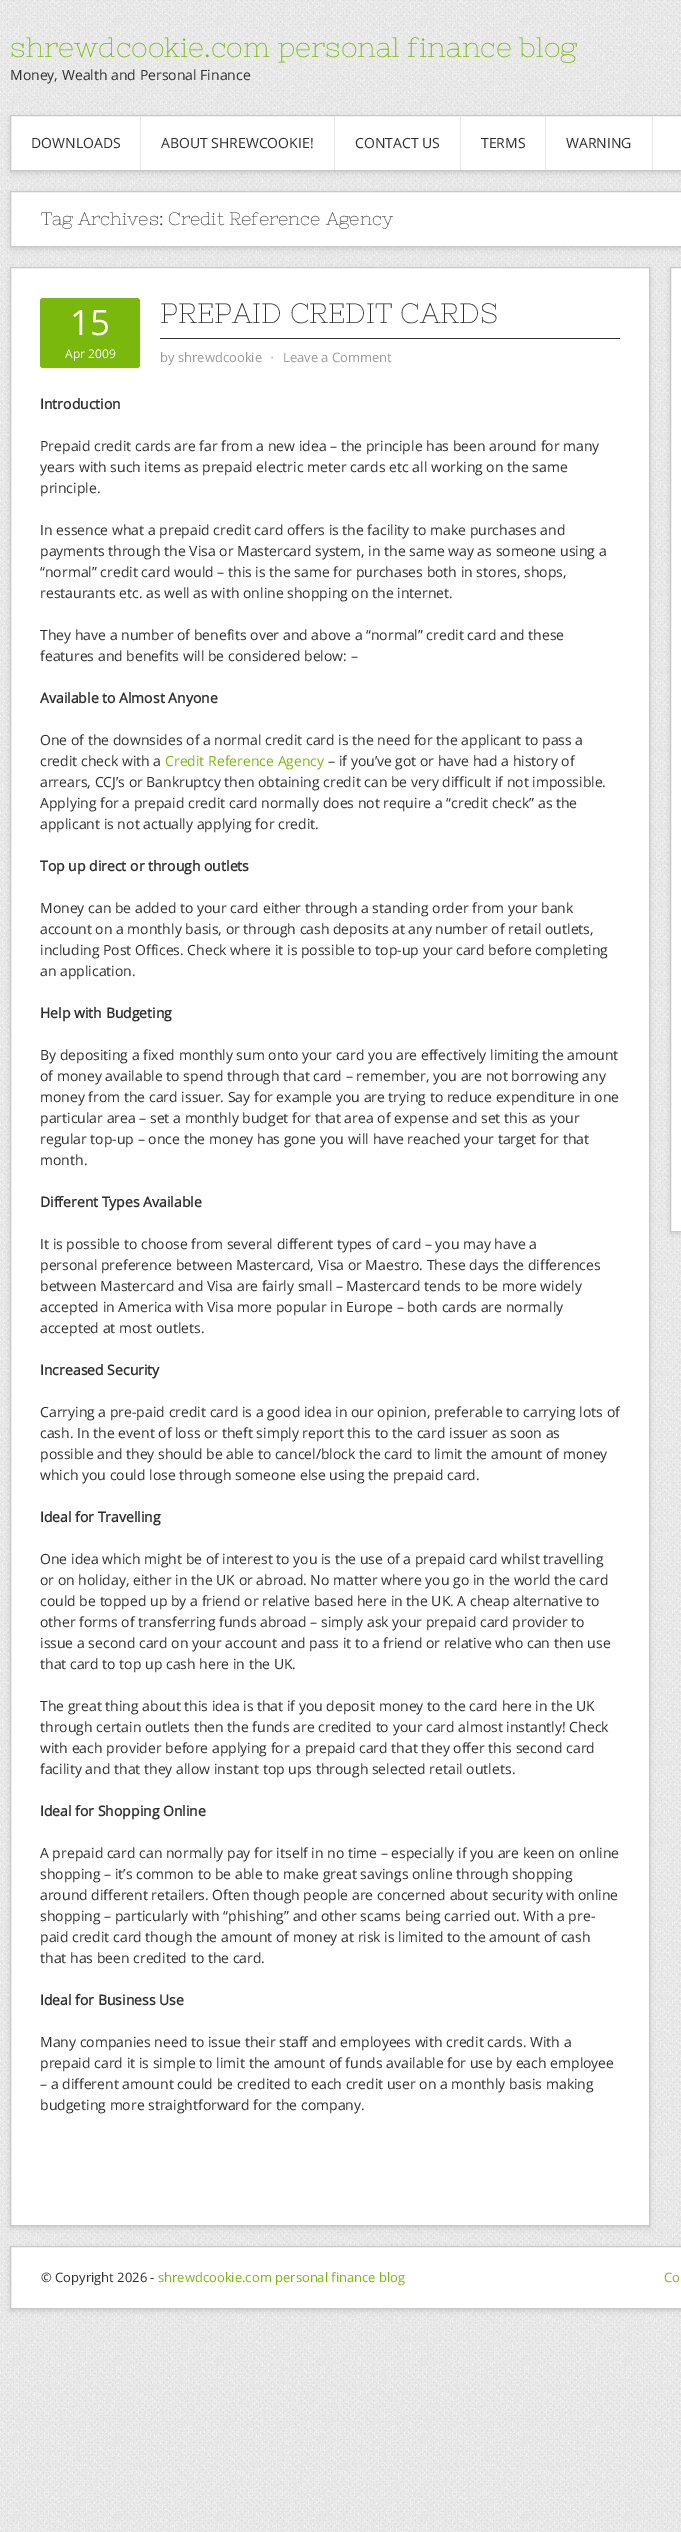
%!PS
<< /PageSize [681 2532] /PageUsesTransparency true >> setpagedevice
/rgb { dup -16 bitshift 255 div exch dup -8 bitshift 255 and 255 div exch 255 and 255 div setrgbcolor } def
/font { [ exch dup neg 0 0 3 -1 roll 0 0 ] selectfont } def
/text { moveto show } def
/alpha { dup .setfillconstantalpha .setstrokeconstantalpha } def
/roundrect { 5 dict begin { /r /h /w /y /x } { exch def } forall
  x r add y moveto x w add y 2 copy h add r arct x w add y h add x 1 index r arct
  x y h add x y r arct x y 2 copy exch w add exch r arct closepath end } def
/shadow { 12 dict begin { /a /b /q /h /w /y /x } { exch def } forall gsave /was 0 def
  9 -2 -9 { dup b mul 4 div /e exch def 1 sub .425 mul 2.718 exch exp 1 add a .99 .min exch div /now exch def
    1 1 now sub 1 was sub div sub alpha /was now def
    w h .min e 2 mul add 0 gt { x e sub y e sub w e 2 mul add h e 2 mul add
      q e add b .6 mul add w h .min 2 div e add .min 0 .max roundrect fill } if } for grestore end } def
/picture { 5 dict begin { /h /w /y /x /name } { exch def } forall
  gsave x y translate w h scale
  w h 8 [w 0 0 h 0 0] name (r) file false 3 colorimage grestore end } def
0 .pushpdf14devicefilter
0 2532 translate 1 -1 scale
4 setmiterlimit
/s1 { /NixieOne-Regular 28 font 16#7AB80E rgb } def
/s2 { /OpenSans-Regular 14 font 16#2F2F2F rgb } def
/s3 { /NixieOne-Regular 18 font 16#2F2F2F rgb } def
/s4 { /OpenSans-Regular 35 font 16#FFFFFF rgb } def
/s5 { /OpenSans-Regular 12 font 16#FFFFFF rgb } def
/s6 { /NixieOne-Regular 28 font 16#2F2F2F rgb } def
/s7 { /OpenSans-Regular 13 font 16#999999 rgb } def
/s8 { /DejaVuSans-Regular 13 font 16#999999 rgb } def
/s9 { /OpenSans-Bold 14 font 16#2F2F2F rgb } def
/s10 { /OpenSans-Regular 14 font 16#7AB80E rgb } def
/s11 { /OpenSans-Regular 13 font 16#2F2F2F rgb } def
/s12 { /OpenSans-Regular 13 font 16#7AB80E rgb } def
16#FFFFFF rgb
0 0 681 2532 rectfill
(pic1.raw) 0 0 681 2532 picture
s1
(shrewdcookie.com personal finance blog) 10 57 text
s2
(Money, Wealth and Personal Finance) 10 80 text
16#323232 rgb
10 117 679 56 0 2.5 0.15 shadow
16#FFFFFF rgb
10.5 115.5 moveto 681.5 115.5 lineto 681.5 170.5 lineto 10.5 170.5 lineto closepath gsave fill grestore
16#C8C8C8 rgb
stroke
16#E7E7E7 rgb
140 116 1 54 rectfill
s2
(DOWNLOADS) 31 148 text
16#E7E7E7 rgb
334 116 1 54 rectfill
s2
(ABOUT SHREWCOOKIE!) 161 148 text
16#E7E7E7 rgb
460 116 1 54 rectfill
s2
(CONTACT US) 355 148 text
16#E7E7E7 rgb
545 116 1 54 rectfill
s2
(TERMS) 481 148 text
16#E7E7E7 rgb
652 116 1 54 rectfill
s2
(WARNING) 566 148 text
16#323232 rgb
10 193 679 56 0 2.5 0.15 shadow
16#FFFFFF rgb
10.5 191.5 moveto 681.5 191.5 lineto 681.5 246.5 lineto 10.5 246.5 lineto closepath gsave fill grestore
16#C8C8C8 rgb
stroke
s3
(Tag Archives: Credit Reference Agency) 41 225 text
16#323232 rgb
10 269 640 1959 0 2.5 0.15 shadow
16#FFFFFF rgb
10.5 267.5 moveto 649.5 267.5 lineto 649.5 2225.5 lineto 10.5 2225.5 lineto closepath gsave fill grestore
16#C8C8C8 rgb
stroke
16#7AB80E rgb
40 298 100 70 3 roundrect fill
s4
(15) 70 335 text
s5
(Apr 2009) 65 358 text
16#2F2F2F rgb
160 338 460 1 rectfill
s6
(PREPAID CREDIT CARDS) 160 323 text
s7
(by shrewdcookie) 160 362 text
s8
(⋅) 270 362 text
s7
(Leave a Comment) 283 362 text
s9
(Introduction) 40 409 text
s2
(Prepaid credit cards are far from a new idea – the principle has been around for many) 40 451 text
(years with such items as prepaid electric meter cards etc all working on the same) 40 472 text
(principle.) 40 493 text
(In essence what a prepaid credit card offers is the facility to make purchases and) 40 535 text
(payments through the Visa or Mastercard system, in the same way as someone using a) 40 556 text
(“normal” credit card would – this is the same for purchases both in stores, shops,) 40 577 text
(restaurants etc. as well as with online shopping on the internet.) 40 598 text
(They have a number of benefits over and above a “normal” credit card and these) 40 640 text
(features and benefits will be considered below: –) 40 661 text
s9
(Available to Almost Anyone) 40 703 text
s2
(One of the downsides of a normal credit card is the need for the applicant to pass a) 40 745 text
(credit check with a) 40 766 text
s10
(Credit Reference Agency) 165 766 text
s2
(– if you’ve got or have had a history of) 328 766 text
(arrears, CCJ’s or Bankruptcy then obtaining credit can be very difficult if not impossible.) 40 787 text
(Applying for a prepaid credit card normally does not require a “credit check” as the) 40 808 text
(applicant is not actually applying for credit.) 40 829 text
s9
(Top up direct or through outlets) 40 871 text
s2
(Money can be added to your card either through a standing order from your bank) 40 913 text
(account on a monthly basis, or through cash deposits at any number of retail outlets,) 40 934 text
(including Post Offices. Check where it is possible to top-up your card before completing) 40 955 text
(an application.) 40 976 text
s9
(Help with Budgeting) 40 1018 text
s2
(By depositing a fixed monthly sum onto your card you are effectively limiting the amount) 40 1060 text
(of money available to spend through that card – remember, you are not borrowing any) 40 1081 text
(money from the card issuer. Say for example you are trying to reduce expenditure in one) 40 1102 text
(particular area – set a monthly budget for that area of expense and set this as your) 40 1123 text
(regular top-up – once the money has gone you will have reached your target for that) 40 1144 text
(month.) 40 1165 text
s9
(Different Types Available) 40 1207 text
s2
(It is possible to choose from several different types of card – you may have a) 40 1249 text
(personal preference between Mastercard, Visa or Maestro. These days the differences) 40 1270 text
(between Mastercard and Visa are fairly small – Mastercard tends to be more widely) 40 1291 text
(accepted in America with Visa more popular in Europe – both cards are normally) 40 1312 text
(accepted at most outlets.) 40 1333 text
s9
(Increased Security) 40 1375 text
s2
(Carrying a pre-paid credit card is a good idea in our opinion, preferable to carrying lots of) 40 1417 text
(cash. In the event of loss or theft simply report this to the card issuer as soon as) 40 1438 text
(possible and they should be able to cancel/block the card to limit the amount of money) 40 1459 text
(which you could lose through someone else using the prepaid card.) 40 1480 text
s9
(Ideal for Travelling) 40 1522 text
s2
(One idea which might be of interest to you is the use of a prepaid card whilst travelling) 40 1564 text
(or on holiday, either in the UK or abroad. No matter where you go in the world the card) 40 1585 text
(could be topped up by a friend or relative based here in the UK. A cheap alternative to) 40 1606 text
(other forms of transferring funds abroad – simply ask your prepaid card provider to) 40 1627 text
(issue a second card on your account and pass it to a friend or relative who can then use) 40 1648 text
(that card to top up cash here in the UK.) 40 1669 text
(The great thing about this idea is that if you deposit money to the card here in the UK) 40 1711 text
(through certain outlets then the funds are credited to your card almost instantly! Check) 40 1732 text
(with each provider before applying for a prepaid card that they offer this second card) 40 1753 text
(facility and that they allow instant top ups through selected retail outlets.) 40 1774 text
s9
(Ideal for Shopping Online) 40 1816 text
s2
(A prepaid card can normally pay for itself in no time – especially if you are keen on online) 40 1858 text
(shopping – it’s common to be able to make great savings online through shopping) 40 1879 text
(around different retailers. Often though people are concerned about security with online) 40 1900 text
(shopping – particularly with “phishing” and other scams being carried out. With a pre-) 40 1921 text
(paid credit card though the amount of money at risk is limited to the amount of cash) 40 1942 text
(that has been credited to the card.) 40 1963 text
s9
(Ideal for Business Use) 40 2005 text
s2
(Many companies need to issue their staff and employees with credit cards. With a) 40 2047 text
(prepaid card it is simple to limit the amount of funds available for use by each employee) 40 2068 text
(– a different amount could be credited to each credit user on a monthly basis making) 40 2089 text
(budgeting more straightforward for the company.) 40 2110 text
16#323232 rgb
670 269 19 965 0 2.5 0.15 shadow
16#FFFFFF rgb
670.5 267.5 moveto 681.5 267.5 lineto 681.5 1231.5 lineto 670.5 1231.5 lineto closepath gsave fill grestore
16#C8C8C8 rgb
stroke
16#323232 rgb
10 2248 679 63 0 2.5 0.15 shadow
16#FFFFFF rgb
10.5 2246.5 moveto 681.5 2246.5 lineto 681.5 2308.5 lineto 10.5 2308.5 lineto closepath gsave fill grestore
16#C8C8C8 rgb
stroke
s11
(© Copyright 2026 -) 41 2282 text
s12
(shrewdcookie.com personal finance blog) 158 2282 text
(Co) 664 2282 text
.poppdf14devicefilter showpage
